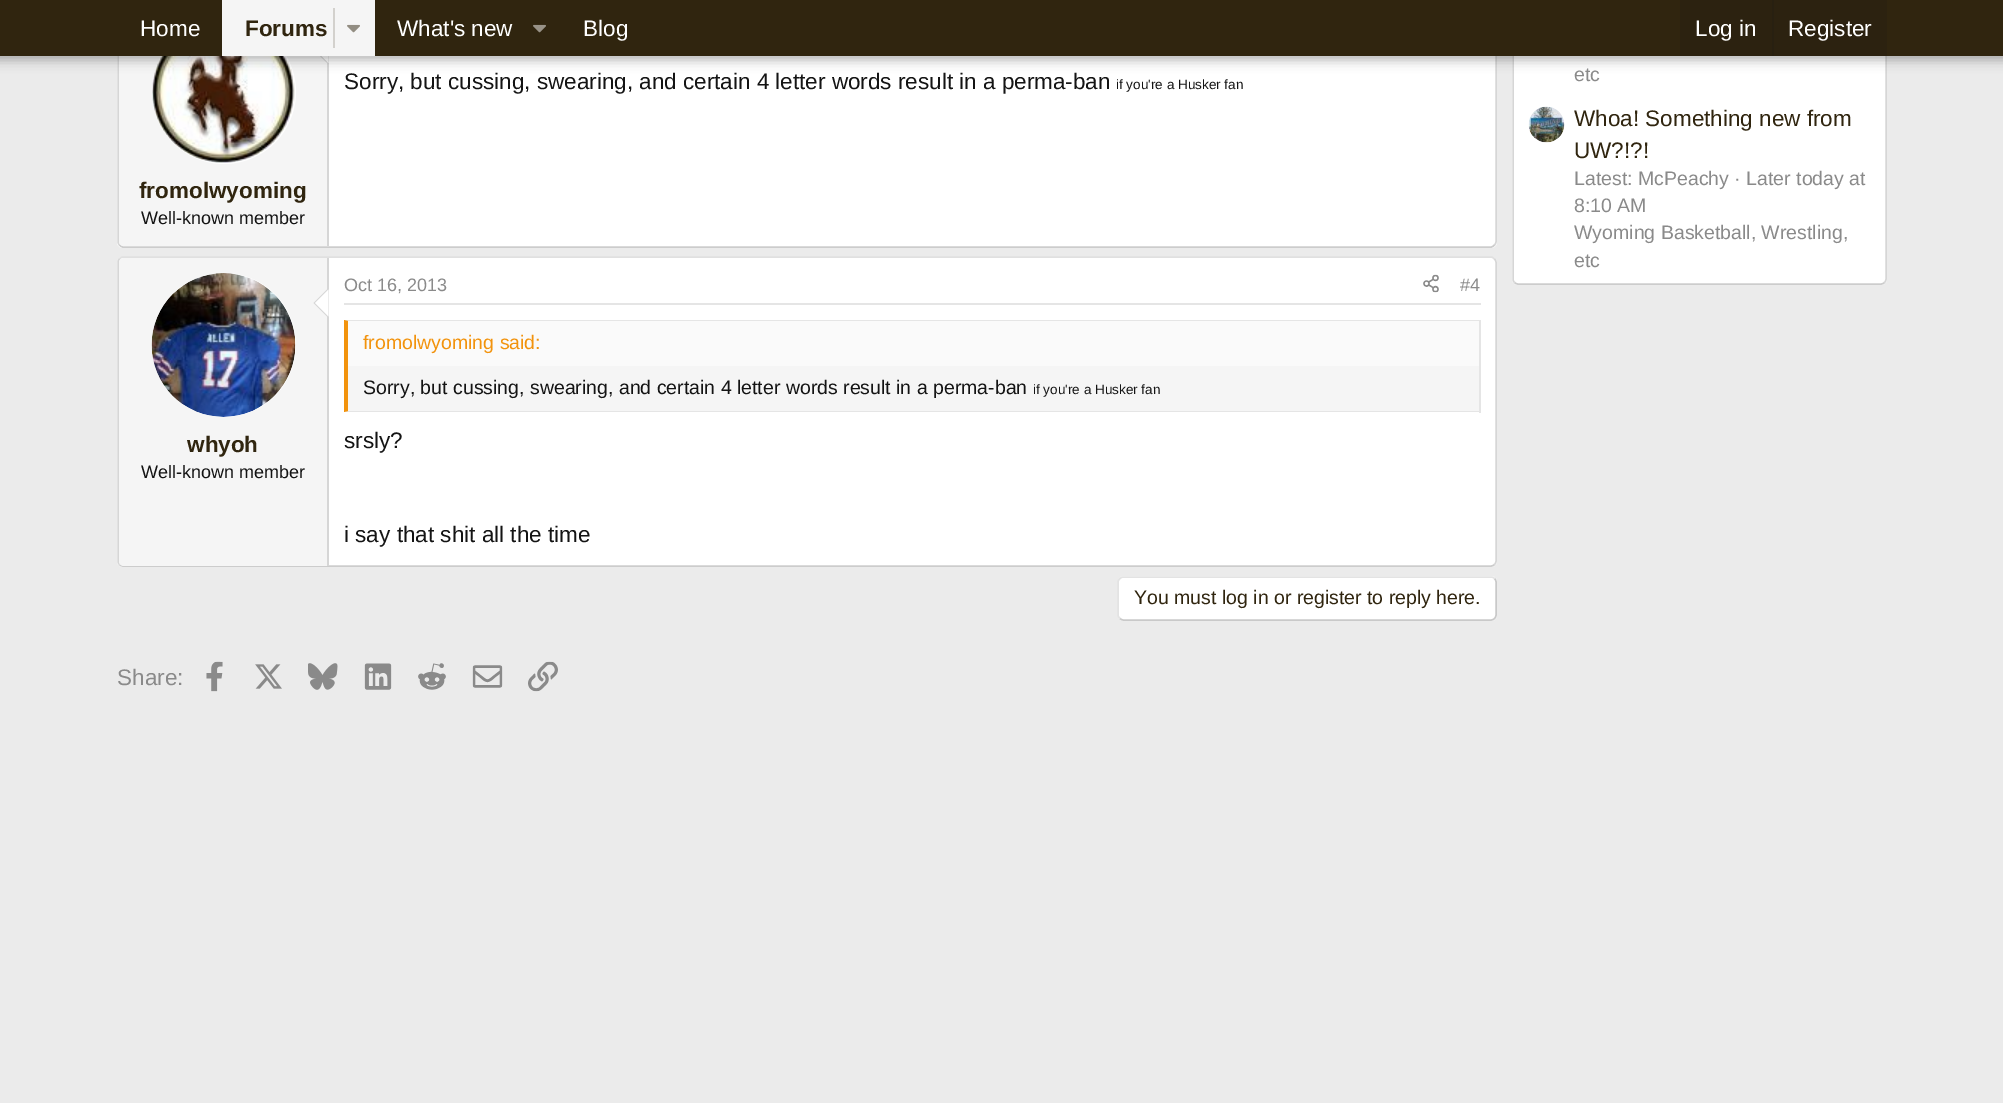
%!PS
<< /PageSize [2003 1103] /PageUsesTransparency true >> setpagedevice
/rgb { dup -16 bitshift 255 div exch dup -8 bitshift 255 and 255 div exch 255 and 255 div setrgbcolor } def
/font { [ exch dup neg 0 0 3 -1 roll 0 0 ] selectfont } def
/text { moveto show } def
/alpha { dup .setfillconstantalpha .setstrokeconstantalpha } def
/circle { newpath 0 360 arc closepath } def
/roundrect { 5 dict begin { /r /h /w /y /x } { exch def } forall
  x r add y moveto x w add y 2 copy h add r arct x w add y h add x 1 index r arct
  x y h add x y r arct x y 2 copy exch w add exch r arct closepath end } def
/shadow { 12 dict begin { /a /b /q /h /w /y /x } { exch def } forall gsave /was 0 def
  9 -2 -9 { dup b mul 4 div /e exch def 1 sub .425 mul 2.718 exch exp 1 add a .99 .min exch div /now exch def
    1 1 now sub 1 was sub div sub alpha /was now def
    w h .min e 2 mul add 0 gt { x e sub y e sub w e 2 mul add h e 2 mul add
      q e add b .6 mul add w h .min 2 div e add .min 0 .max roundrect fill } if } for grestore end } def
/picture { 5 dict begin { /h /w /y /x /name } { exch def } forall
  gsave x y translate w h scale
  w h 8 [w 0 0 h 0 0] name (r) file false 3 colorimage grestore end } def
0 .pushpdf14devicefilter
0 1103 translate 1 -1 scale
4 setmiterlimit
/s1 { /LiberationSans-Regular 22.5 font 16#FFFFFF rgb } def
/s2 { /LiberationSans-Bold 22.5 font 16#30250F rgb } def
/s3 { /LiberationSans-Regular 22.5 font 16#141414 rgb } def
/s4 { /LiberationSans-Regular 13.5 font 16#141414 rgb } def
/s5 { /LiberationSans-Regular 18 font 16#141414 rgb } def
/s6 { /LiberationSans-Regular 18 font 16#8A8A8A rgb } def
/s7 { /LiberationSans-Regular 19.5 font 16#F2930D rgb } def
/s8 { /LiberationSans-Regular 19.5 font 16#141414 rgb } def
/s9 { /LiberationSans-Regular 19.5 font 16#30250F rgb } def
/s10 { /LiberationSans-Regular 22.5 font 16#8A8A8A rgb } def
/s11 { /LiberationSans-Regular 19.5 font 16#8A8A8A rgb } def
/s12 { /LiberationSans-Regular 22.5 font 16#30250F rgb } def
16#EBEBEB rgb
0 0 2003 1103 rectfill
16#FFFFFF rgb
117 3 1380 245 6 roundrect fill
16#D6D6D6 rgb
1.5 setlinewidth
1494.5 5.5 moveto 1495.5 6.5 1496 7.5 1496 9 curveto 1496 241.5 lineto 1496 243 1495.5 244 1494.5 245 curveto stroke
16#CCCCCC rgb
1494.5 245 moveto 1493.5 246 1492.5 247 1491 247 curveto 123 247 lineto 121.5 247 120.5 246 119.5 245 curveto stroke
16#D6D6D6 rgb
119.5 245 moveto 118.5 244 118 243 118 241.5 curveto 118 9 lineto 118 7.5 118.5 6.5 119.5 5.5 curveto stroke
16#F5F5F5 rgb
124 5 moveto 329 5 lineto 329 246 lineto 124 246 lineto 121 246 119 244 119 241 curveto 119 10 lineto 119 7 121 5 124 5 curveto closepath fill
16#D6D6D6 rgb
327 56 2 190 rectfill
16#FFFFFF rgb
224 92 72 circle fill
(pic3.raw) 152 56 143 107 picture
16#D6D6D6 rgb
328.5 34.5 moveto 328.5 64.5 lineto 313.5 49.5 lineto closepath fill
16#FFFFFF rgb
328.5 36 moveto 328.5 63 lineto 315 49.5 lineto closepath fill
1512 -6 375 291 6 roundrect fill
16#D6D6D6 rgb
1884.5 -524 moveto 1885.5 -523 1886 -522 1886 -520.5 curveto 1886 279 lineto 1886 280.5 1885.5 281.5 1884.5 282.5 curveto stroke
16#CCCCCC rgb
1884.5 282.5 moveto 1883.5 283.5 1882.5 284 1881 284 curveto 1518 284 lineto 1516.5 284 1515.5 283.5 1514.5 282.5 curveto stroke
16#D6D6D6 rgb
1514.5 282.5 moveto 1513.5 281.5 1513 280.5 1513 279 curveto 1513 -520.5 lineto 1513 -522 1513.5 -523 1514.5 -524 curveto stroke
16#000000 rgb
-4 -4 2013 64 0 6 0.3 shadow
16#30250F rgb
0 0 2003 56 rectfill
s1
(Home) 140 36 text
16#F5F5F5 rgb
222 0 153 56 rectfill
s2
(Forums) 245 36 text
16#D3D1CD rgb
333 8 2 40 rectfill
(pic1.raw) 347 24 13 9 picture
s1
(What's new) 397 36 text
(pic2.raw) 533 24 13 9 picture
(Blog) 583 36 text
16#2C2210 rgb
1680 0 207 56 rectfill
s1
(Log in) 1695 36 text
16#282011 rgb
1772 0 2 56 rectfill
s1
(Register) 1788 36 text
s3
(Sorry, but cussing, swearing, and certain 4 letter words result in a perma-ban) 344 89 text
s4
(if you're a Husker fan) 1116 89 text
s2
(fromolwyoming) 139 198 text
s5
(Well-known member) 141 224 text
16#FFFFFF rgb
117 257 1380 310 6 roundrect fill
16#E0E0E0 rgb
119.5 259 moveto 120.5 258 121.5 257 123 257 curveto 1491 257 lineto 1492.5 257 1493.5 258 1494.5 259 curveto stroke
16#D6D6D6 rgb
1494.5 259 moveto 1495.5 260 1496 261 1496 262.5 curveto 1496 561 lineto 1496 562.5 1495.5 563.5 1494.5 564.5 curveto stroke
16#CCCCCC rgb
1494.5 564.5 moveto 1493.5 565.5 1492.5 566 1491 566 curveto 123 566 lineto 121.5 566 120.5 565.5 119.5 564.5 curveto stroke
16#D6D6D6 rgb
119.5 564.5 moveto 118.5 563.5 118 562.5 118 561 curveto 118 262.5 lineto 118 261 118.5 260 119.5 259 curveto stroke
16#F5F5F5 rgb
124 258 moveto 329 258 lineto 329 566 lineto 124 566 lineto 121 566 119 564 119 561 curveto 119 263 lineto 119 260 121 258 124 258 curveto closepath fill
16#D6D6D6 rgb
327 258 2 308 rectfill
16#FFFFFF rgb
224 345 72 circle fill
(pic4.raw) 151 273 145 144 picture
16#D6D6D6 rgb
328.5 288 moveto 328.5 318 lineto 313.5 303 lineto closepath fill
16#FFFFFF rgb
328.5 289.5 moveto 328.5 316.5 lineto 315 303 lineto closepath fill
s2
(whyoh) 187 452 text
s5
(Well-known member) 141 478 text
16#E5E5E5 rgb
344 303 1137 2 rectfill
s6
(Oct 16, 2013) 344 291 text
(pic5.raw) 1423 274 16 19 picture
(#4) 1460 291 text
16#F5F5F5 rgb
348 366 1131 45 rectfill
16#E5E5E5 rgb
344 320 moveto 1480 320 lineto 1479 321 lineto 348 321 lineto closepath fill
1479 320 2 93 rectfill
1480 412 moveto 344 412 lineto 348 411 lineto 1479 411 lineto closepath fill
16#F2930D rgb
344 412 moveto 344 320 lineto 348 321 lineto 348 411 lineto closepath fill
16#FAFAFA rgb
348 321 1131 45 rectfill
s7
(fromolwyoming said:) 363 349 text
s8
(Sorry, but cussing, swearing, and certain 4 letter words result in a perma-ban) 363 394 text
s4
(if you're a Husker fan) 1033 394 text
s3
(srsly?) 344 448 text
(i say that shit all the time) 344 542 text
16#FFFFFF rgb
1118 576 379 45 6 roundrect fill
16#C9C9C9 rgb
1494.5 578.5 moveto 1495.5 579.5 1496 580.5 1496 582 curveto 1496 615 lineto 1496 616.5 1495.5 617.5 1494.5 618.5 curveto 1493.5 619.5 1492.5 620 1491 620 curveto 1123.5 620 lineto 1122 620 1121 619.5 1120 618.5 curveto stroke
16#E3E3E3 rgb
1120 618.5 moveto 1119 617.5 1118 616.5 1118 615 curveto 1118 582 lineto 1118 580.5 1119 579.5 1120 578.5 curveto 1121 577.5 1122 577 1123.5 577 curveto 1491 577 lineto 1492.5 577 1493.5 577.5 1494.5 578.5 curveto stroke
s9
(You must log in or register to reply here.) 1134 604 text
s10
(Share:) 117 685 text
(pic6.raw) 206 661 17 31 picture
(pic7.raw) 255 664 27 25 picture
(pic8.raw) 308 663 30 27 picture
(pic9.raw) 364 663 28 27 picture
(pic10.raw) 418 663 28 27 picture
(pic11.raw) 472 665 31 23 picture
(pic12.raw) 528 661 30 31 picture
s11
(etc) 1574 81 text
(pic13.raw) 1528 106 37 37 picture
s12
(Whoa! Something new from) 1574 126 text
(UW?!?!) 1574 158 text
s11
(Latest: McPeachy · Later today at) 1574 185 text
(8:10 AM) 1574 212 text
(Wyoming Basketball, Wrestling,) 1574 239 text
(etc) 1574 267 text
.poppdf14devicefilter showpage
